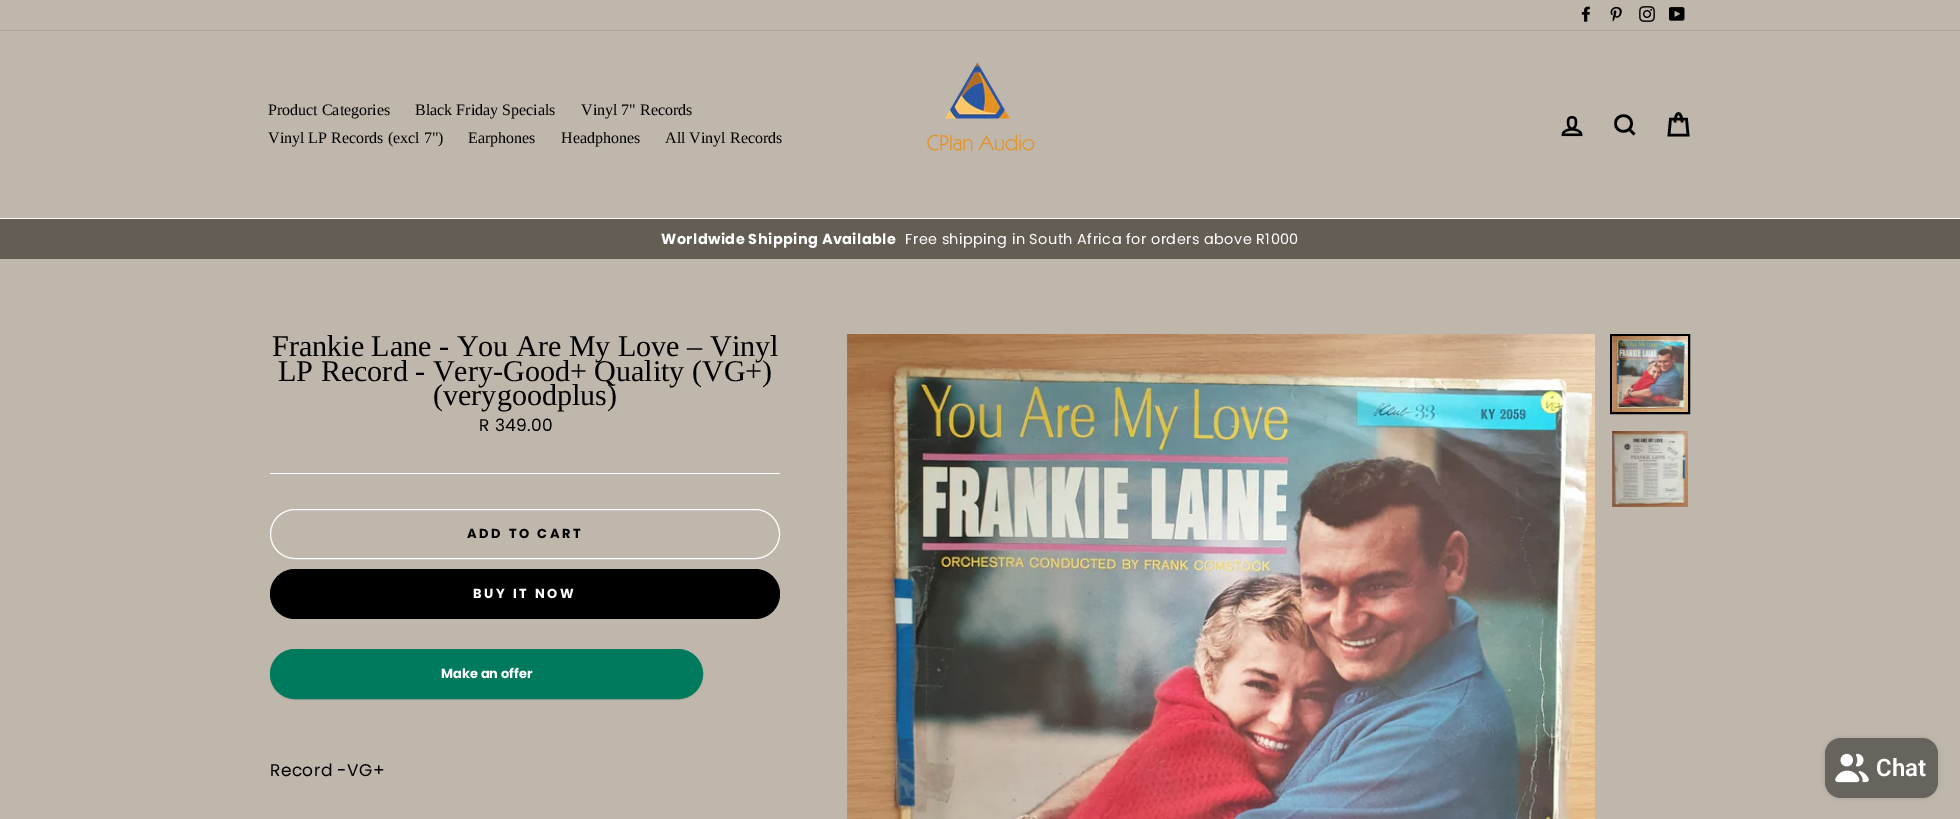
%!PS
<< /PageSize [1960 819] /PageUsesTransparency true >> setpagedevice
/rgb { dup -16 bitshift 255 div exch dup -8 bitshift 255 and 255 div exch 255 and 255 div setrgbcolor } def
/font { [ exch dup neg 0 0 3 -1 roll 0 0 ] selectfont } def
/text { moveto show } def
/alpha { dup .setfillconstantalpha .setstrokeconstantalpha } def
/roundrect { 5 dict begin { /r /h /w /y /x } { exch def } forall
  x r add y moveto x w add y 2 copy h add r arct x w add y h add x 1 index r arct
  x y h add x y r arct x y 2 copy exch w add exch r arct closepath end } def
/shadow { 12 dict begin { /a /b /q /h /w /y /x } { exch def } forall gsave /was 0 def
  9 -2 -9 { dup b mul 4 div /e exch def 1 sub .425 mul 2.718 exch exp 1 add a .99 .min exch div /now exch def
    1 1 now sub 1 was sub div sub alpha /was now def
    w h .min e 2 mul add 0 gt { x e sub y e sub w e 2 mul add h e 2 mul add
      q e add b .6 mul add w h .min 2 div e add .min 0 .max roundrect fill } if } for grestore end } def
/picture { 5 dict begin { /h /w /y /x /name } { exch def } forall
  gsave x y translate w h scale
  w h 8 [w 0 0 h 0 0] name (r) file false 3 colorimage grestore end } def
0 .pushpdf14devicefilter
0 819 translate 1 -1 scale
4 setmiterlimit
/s1 { /LiberationSerif-Regular 16 font 16#000000 rgb } def
/s2 { /LiberationSerif-Regular 30.1 font 16#000000 rgb } def
/s3 { /Poppins-Bold 13 font 16#FFFFFF rgb } def
/s4 { /Roboto-SemiBold 24 font 16#FFFFFF rgb } def
16#BFB6AC rgb
0 0 1960 819 rectfill
(pic1.raw) 1581 6 9 16 picture
(pic2.raw) 1610 6 12 16 picture
(pic3.raw) 1639 6 16 16 picture
(pic4.raw) 1669 7 16 14 picture
16#ACA49B rgb
0 30 1960 1 rectfill
16#FFFFFF rgb
0 218 1960 1 rectfill
s1
(Product Categories) 268 115 text
(Black Friday Specials) 415 115 text
(Vinyl 7" Records) 581 115 text
(Vinyl LP Records \(excl 7"\)) 268 143 text
(Earphones) 468 143 text
(Headphones) 561 143 text
(All Vinyl Records) 665 143 text
(pic5.raw) 927 62 108 89 picture
(pic6.raw) 1561 116 22 21 picture
2.6 setlinewidth
1631.5 123.5 moveto 1631.5 134 1615.5 134 1615.5 123.5 curveto 1615.5 113 1631.5 113 1631.5 123.5 curveto closepath 1634.5 134.5 moveto 1629.5 129.5 lineto stroke
1675 122.5 moveto 1675 110.5 1682 110.5 1682 122.5 curveto 1670.5 119 moveto 1686.5 119 lineto 1688 135 lineto 1669 135 lineto closepath stroke
16#635D54 rgb
0 219 1960 40 rectfill
/Poppins-Bold 14.45 font
16#FFFFFF rgb
661 244 moveto 0.42 0 (Worldwide Shipping Available) ashow
/Poppins-Regular 14.45 font
905 244 moveto 0.42 0 (Free shipping in South Africa for orders above R1000) ashow
s2
(Frankie Lane - You Are My Love – Vinyl) 272 356 text
(LP Record - Very-Good+ Quality \(VG+\)) 278 381 text
(\(verygoodplus\)) 433 405 text
/Poppins-Regular 17 font
479 431 moveto 0.42 0 (R 349.00) ashow
16#FFFFFF rgb
270 473 510 1 rectfill
1 setlinewidth
270.5 509.5 509 49 24.5 roundrect stroke
/Poppins-Bold 13 font
16#000000 rgb
467 538 moveto 2.6 0 (ADD TO CART) ashow
270 569 510 50 25 roundrect fill
16#FFFFFF rgb
473 598 moveto 2.6 0 (BUY IT NOW) ashow
16#1F2124 rgb
270 650 433 50 25 0.5 0.1 shadow
16#007A5C rgb
270.5 649.5 432 49 24.5 roundrect gsave fill grestore
stroke
s3
(Make an offer) 441 678 text
/Poppins-Regular 17 font
16#000000 rgb
270 776 moveto 0.42 0 (Record -VG+) ashow
(pic7.raw) 847 334 748 485 picture
2 setlinewidth
1611 335 78 78 rectstroke
(pic8.raw) 1612 336 76 76 picture
(pic9.raw) 1612 431 76 76 picture
1825 738 113 60 16 2.5 0.15 shadow
16#67635D rgb
1825 738 113 60 16 roundrect fill
(pic10.raw) 1835 753 34 30 picture
s4
(Chat) 1876 776 text
.poppdf14devicefilter showpage
